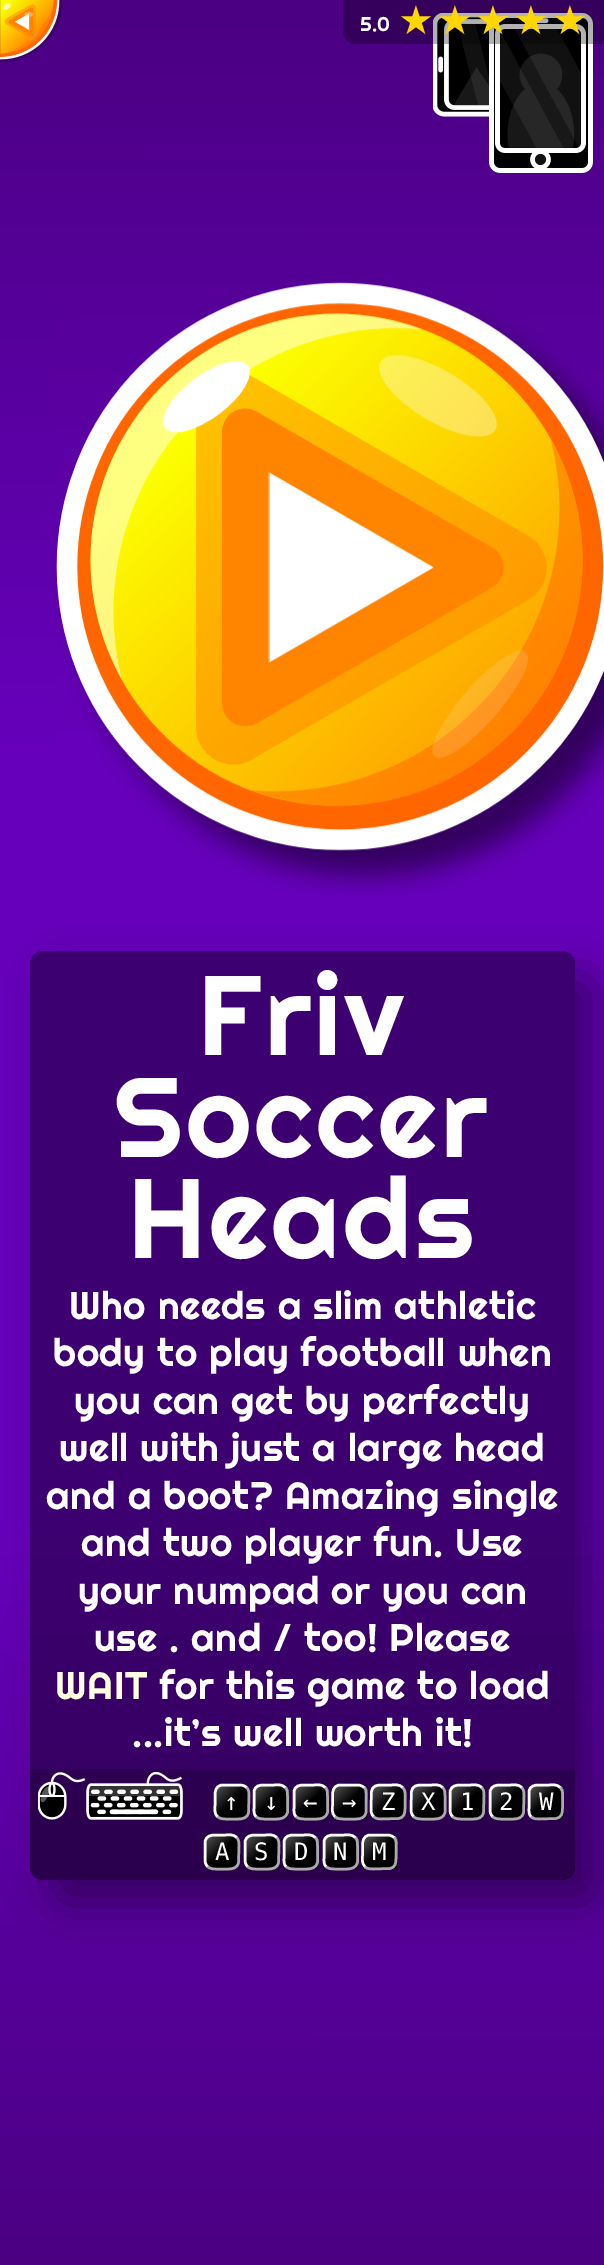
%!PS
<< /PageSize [604 2265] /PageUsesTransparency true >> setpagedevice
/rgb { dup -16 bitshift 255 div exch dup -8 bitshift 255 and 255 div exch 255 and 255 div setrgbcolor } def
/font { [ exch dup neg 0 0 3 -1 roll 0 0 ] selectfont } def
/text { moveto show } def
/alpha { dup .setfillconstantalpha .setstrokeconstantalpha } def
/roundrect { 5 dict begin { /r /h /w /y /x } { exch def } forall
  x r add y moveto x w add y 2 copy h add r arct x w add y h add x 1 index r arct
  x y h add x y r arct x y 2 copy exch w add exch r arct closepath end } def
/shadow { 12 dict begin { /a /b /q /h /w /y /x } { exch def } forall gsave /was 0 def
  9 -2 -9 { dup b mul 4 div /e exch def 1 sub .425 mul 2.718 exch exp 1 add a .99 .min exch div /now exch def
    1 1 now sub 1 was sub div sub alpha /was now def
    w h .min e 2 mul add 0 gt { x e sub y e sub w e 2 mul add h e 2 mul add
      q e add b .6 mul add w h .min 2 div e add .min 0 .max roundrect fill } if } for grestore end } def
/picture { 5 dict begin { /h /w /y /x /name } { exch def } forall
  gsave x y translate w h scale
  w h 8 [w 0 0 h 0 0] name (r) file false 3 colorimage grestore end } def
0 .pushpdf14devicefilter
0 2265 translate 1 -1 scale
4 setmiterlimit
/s1 { /Righteous-Regular 20 font 16#FFFFFF rgb } def
/s2 { /DejaVuSans-Regular 40 font 16#FFD700 rgb } def
/s3 { /DejaVuSansMono-Regular 24 font 16#FFFFFF rgb } def
16#FFFFFF rgb
0 0 604 2265 rectfill
gsave 0 0 moveto 604 0 lineto 604 2265 lineto 0 2265 lineto closepath clip newpath
<< /ShadingType 2 /ColorSpace /DeviceRGB /Coords [302 0 303 2265] /Extend [true true] /Function << /FunctionType 3 /Domain [0 1] /Functions [<< /FunctionType 2 /Domain [0 1] /C0 [0.294 0 0.51] /C1 [0.4 0 0.733] /N 1 >> << /FunctionType 2 /Domain [0 1] /C0 [0.4 0 0.733] /C1 [0.4 0 0.733] /N 1 >> << /FunctionType 2 /Domain [0 1] /C0 [0.4 0 0.733] /C1 [0.294 0 0.51] /N 1 >>] /Bounds [0.33 0.67] /Encode [0 1 0 1 0 1] >> >> shfill grestore
(pic1.raw) 0 0 63 63 picture
(pic2.raw) 433 13 160 104 picture
(pic3.raw) 489 13 104 160 picture
0.3 alpha
16#000000 rgb
343 0 moveto 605 0 lineto 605 44 lineto 356 44 lineto 349 44 343 38 343 31 curveto closepath fill
1 alpha
s1
(5.0) 360 31 text
s2
(★) 398 34 text
(★) 437 34 text
(★) 475 34 text
(★) 513 34 text
(★) 552 34 text
(pic4.raw) 56 282 548 613 picture
gsave
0 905 moveto 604 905 lineto 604 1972 lineto 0 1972 lineto closepath 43 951 moveto 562 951 lineto 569 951 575 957 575 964 curveto 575 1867 lineto 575 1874 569 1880 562 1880 curveto 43 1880 lineto 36 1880 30 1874 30 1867 curveto 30 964 lineto 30 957 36 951 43 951 curveto closepath eoclip newpath
16#000000 rgb
53 974 545 929 13 22.5 0.4 shadow
grestore
0.4 alpha
16#000000 rgb
30 951 545 929 13 roundrect fill
/Righteous-Regular 113 font
1 alpha
16#FFFFFF rgb
198 1055 moveto 3 0 (Friv) ashow
114 1157 moveto 3 0 (Soccer) ashow
128 1258 moveto 3 0 (Heads) ashow
/Righteous-Regular 38.5 font
69 1319 moveto 0.6 0 (Who needs a slim athletic) ashow
53 1366 moveto 0.6 0 (body to play football when) ashow
74 1414 moveto 0.6 0 (you can get by perfectly) ashow
59 1461 moveto 0.6 0 (well with just a large head) ashow
46 1509 moveto 0.6 0 (and a boot? Amazing single) ashow
81 1556 moveto 0.6 0 (and two player fun. Use) ashow
78 1604 moveto 0.6 0 (your numpad or you can) ashow
94 1651 moveto 0.6 0 (use . and / too! Please) ashow
16#FFFFE0 rgb
55 1699 moveto 0.6 0 (WAIT) ashow
16#FFFFFF rgb
159 1699 moveto 0.6 0 (for this game to load) ashow
132 1746 moveto 0.6 0 (...it’s well worth it!) ashow
0.2 alpha
16#000000 rgb
30 1769 moveto 575 1769 lineto 575 1867 lineto 575 1874 569 1880 562 1880 curveto 43 1880 lineto 36 1880 30 1874 30 1867 curveto closepath fill
1 alpha
(pic5.raw) 38 1772 48 48 picture
(pic6.raw) 86 1771 97 49 picture
gsave
214 1784 36 36 9 roundrect clip newpath
gsave 216 1786 moveto 248 1786 lineto 248 1818 lineto 216 1818 lineto closepath clip newpath
<< /ShadingType 2 /ColorSpace /DeviceRGB /Coords [216 1786 248 1818] /Extend [true true] /Function << /FunctionType 3 /Domain [0 1] /Functions [<< /FunctionType 2 /Domain [0 1] /C0 [0.333 0.333 0.333] /C1 [0 0 0] /N 1 >> << /FunctionType 2 /Domain [0 1] /C0 [0 0 0] /C1 [0 0 0] /N 1 >>] /Bounds [0.5] /Encode [0 1 0 1] >> >> shfill grestore
grestore
16#AAAAAA rgb
2.5 setlinewidth
246.5 1787.5 moveto 249 1789.5 249 1792.5 249 1796 curveto 248.5 1812.5 lineto 247.5 1818 243 1819 238 1819 curveto 229 1819 lineto 225 1819 220.5 1819.5 217.5 1816.5 curveto stroke
16#FFFFFF rgb
217.5 1816.5 moveto 214 1813.5 215 1809 215 1805 curveto 215 1796 lineto 215 1791 215.5 1786.5 221.5 1785 curveto 238 1785 lineto 241 1785 244 1785 246.5 1787.5 curveto stroke
s3
(↑) 224 1810 text
gsave
253 1784 36 36 9 roundrect clip newpath
gsave 255 1786 moveto 286 1786 lineto 286 1818 lineto 255 1818 lineto closepath clip newpath
<< /ShadingType 2 /ColorSpace /DeviceRGB /Coords [255 1786 286 1818] /Extend [true true] /Function << /FunctionType 3 /Domain [0 1] /Functions [<< /FunctionType 2 /Domain [0 1] /C0 [0.333 0.333 0.333] /C1 [0 0 0] /N 1 >> << /FunctionType 2 /Domain [0 1] /C0 [0 0 0] /C1 [0 0 0] /N 1 >>] /Bounds [0.5] /Encode [0 1 0 1] >> >> shfill grestore
gsave 286 1786 moveto 289 1786 lineto 289 1818 lineto 286 1818 lineto closepath clip newpath
<< /ShadingType 2 /ColorSpace /DeviceRGB /Coords [286 1786 318 1818] /Extend [true true] /Function << /FunctionType 3 /Domain [0 1] /Functions [<< /FunctionType 2 /Domain [0 1] /C0 [0.333 0.333 0.333] /C1 [0 0 0] /N 1 >> << /FunctionType 2 /Domain [0 1] /C0 [0 0 0] /C1 [0 0 0] /N 1 >>] /Bounds [0.5] /Encode [0 1 0 1] >> >> shfill grestore
gsave 255 1818 moveto 286 1818 lineto 286 1820 lineto 255 1820 lineto closepath clip newpath
<< /ShadingType 2 /ColorSpace /DeviceRGB /Coords [255 1818 286 1849] /Extend [true true] /Function << /FunctionType 3 /Domain [0 1] /Functions [<< /FunctionType 2 /Domain [0 1] /C0 [0.333 0.333 0.333] /C1 [0 0 0] /N 1 >> << /FunctionType 2 /Domain [0 1] /C0 [0 0 0] /C1 [0 0 0] /N 1 >>] /Bounds [0.5] /Encode [0 1 0 1] >> >> shfill grestore
grestore
16#AAAAAA rgb
285 1787.5 moveto 287.5 1789.5 287.5 1792.5 287.5 1796 curveto 287.5 1812.5 lineto 286 1818 281.5 1819 276.5 1819 curveto 267.5 1819 lineto 263.5 1819 259 1819.5 256 1816.5 curveto stroke
16#FFFFFF rgb
256 1816.5 moveto 253.5 1814 254 1811 254 1808 curveto 254 1791.5 lineto 255 1785.5 259.5 1785 264.5 1785 curveto 273.5 1785 lineto 277.5 1785 282 1784 285 1787.5 curveto stroke
(↓) 264 1810 text
gsave
293 1784 36 36 9 roundrect clip newpath
gsave 295 1786 moveto 326 1786 lineto 326 1818 lineto 295 1818 lineto closepath clip newpath
<< /ShadingType 2 /ColorSpace /DeviceRGB /Coords [295 1786 326 1818] /Extend [true true] /Function << /FunctionType 3 /Domain [0 1] /Functions [<< /FunctionType 2 /Domain [0 1] /C0 [0.333 0.333 0.333] /C1 [0 0 0] /N 1 >> << /FunctionType 2 /Domain [0 1] /C0 [0 0 0] /C1 [0 0 0] /N 1 >>] /Bounds [0.5] /Encode [0 1 0 1] >> >> shfill grestore
gsave 326 1786 moveto 329 1786 lineto 329 1818 lineto 326 1818 lineto closepath clip newpath
<< /ShadingType 2 /ColorSpace /DeviceRGB /Coords [326 1786 358 1818] /Extend [true true] /Function << /FunctionType 3 /Domain [0 1] /Functions [<< /FunctionType 2 /Domain [0 1] /C0 [0.333 0.333 0.333] /C1 [0 0 0] /N 1 >> << /FunctionType 2 /Domain [0 1] /C0 [0 0 0] /C1 [0 0 0] /N 1 >>] /Bounds [0.5] /Encode [0 1 0 1] >> >> shfill grestore
gsave 295 1818 moveto 326 1818 lineto 326 1820 lineto 295 1820 lineto closepath clip newpath
<< /ShadingType 2 /ColorSpace /DeviceRGB /Coords [295 1818 326 1849] /Extend [true true] /Function << /FunctionType 3 /Domain [0 1] /Functions [<< /FunctionType 2 /Domain [0 1] /C0 [0.333 0.333 0.333] /C1 [0 0 0] /N 1 >> << /FunctionType 2 /Domain [0 1] /C0 [0 0 0] /C1 [0 0 0] /N 1 >>] /Bounds [0.5] /Encode [0 1 0 1] >> >> shfill grestore
grestore
16#AAAAAA rgb
325 1787.5 moveto 327.5 1789.5 327.5 1792.5 327.5 1796 curveto 327.5 1812.5 lineto 326 1818 321.5 1819 316.5 1819 curveto 307.5 1819 lineto 303.5 1819 299 1819.5 296 1816.5 curveto stroke
16#FFFFFF rgb
296 1816.5 moveto 293.5 1814 294 1811 294 1808 curveto 294 1791.5 lineto 295 1785.5 299.5 1785 304.5 1785 curveto 313.5 1785 lineto 317.5 1785 322 1784 325 1787.5 curveto stroke
(←) 303 1810 text
gsave
331 1784 37 36 9 roundrect clip newpath
gsave 334 1784 moveto 365 1784 lineto 365 1786 lineto 334 1786 lineto closepath clip newpath
<< /ShadingType 2 /ColorSpace /DeviceRGB /Coords [334 1755 365 1786] /Extend [true true] /Function << /FunctionType 3 /Domain [0 1] /Functions [<< /FunctionType 2 /Domain [0 1] /C0 [0.333 0.333 0.333] /C1 [0 0 0] /N 1 >> << /FunctionType 2 /Domain [0 1] /C0 [0 0 0] /C1 [0 0 0] /N 1 >>] /Bounds [0.5] /Encode [0 1 0 1] >> >> shfill grestore
gsave 331 1786 moveto 334 1786 lineto 334 1818 lineto 331 1818 lineto closepath clip newpath
<< /ShadingType 2 /ColorSpace /DeviceRGB /Coords [303 1786 334 1818] /Extend [true true] /Function << /FunctionType 3 /Domain [0 1] /Functions [<< /FunctionType 2 /Domain [0 1] /C0 [0.333 0.333 0.333] /C1 [0 0 0] /N 1 >> << /FunctionType 2 /Domain [0 1] /C0 [0 0 0] /C1 [0 0 0] /N 1 >>] /Bounds [0.5] /Encode [0 1 0 1] >> >> shfill grestore
gsave 334 1786 moveto 365 1786 lineto 365 1818 lineto 334 1818 lineto closepath clip newpath
<< /ShadingType 2 /ColorSpace /DeviceRGB /Coords [334 1786 365 1818] /Extend [true true] /Function << /FunctionType 3 /Domain [0 1] /Functions [<< /FunctionType 2 /Domain [0 1] /C0 [0.333 0.333 0.333] /C1 [0 0 0] /N 1 >> << /FunctionType 2 /Domain [0 1] /C0 [0 0 0] /C1 [0 0 0] /N 1 >>] /Bounds [0.5] /Encode [0 1 0 1] >> >> shfill grestore
gsave 365 1786 moveto 368 1786 lineto 368 1818 lineto 365 1818 lineto closepath clip newpath
<< /ShadingType 2 /ColorSpace /DeviceRGB /Coords [365 1786 396 1818] /Extend [true true] /Function << /FunctionType 3 /Domain [0 1] /Functions [<< /FunctionType 2 /Domain [0 1] /C0 [0.333 0.333 0.333] /C1 [0 0 0] /N 1 >> << /FunctionType 2 /Domain [0 1] /C0 [0 0 0] /C1 [0 0 0] /N 1 >>] /Bounds [0.5] /Encode [0 1 0 1] >> >> shfill grestore
gsave 334 1818 moveto 365 1818 lineto 365 1820 lineto 334 1820 lineto closepath clip newpath
<< /ShadingType 2 /ColorSpace /DeviceRGB /Coords [334 1818 365 1849] /Extend [true true] /Function << /FunctionType 3 /Domain [0 1] /Functions [<< /FunctionType 2 /Domain [0 1] /C0 [0.333 0.333 0.333] /C1 [0 0 0] /N 1 >> << /FunctionType 2 /Domain [0 1] /C0 [0 0 0] /C1 [0 0 0] /N 1 >>] /Bounds [0.5] /Encode [0 1 0 1] >> >> shfill grestore
grestore
16#AAAAAA rgb
364 1787.5 moveto 366.5 1789.5 366 1792.5 366 1796 curveto 366 1812.5 lineto 365 1818 360.5 1819 355.5 1819 curveto 346.5 1819 lineto 342.5 1819 338 1819.5 335 1816.5 curveto stroke
16#FFFFFF rgb
335 1816.5 moveto 331.5 1813.5 332.5 1809 332.5 1805 curveto 332.5 1796 lineto 332.5 1791 333 1786.5 339 1785 curveto 355.5 1785 lineto 358.5 1785 361.5 1785 364 1787.5 curveto stroke
(→) 342 1810 text
gsave
370 1784 36 36 9 roundrect clip newpath
gsave 370 1786 moveto 373 1786 lineto 373 1818 lineto 370 1818 lineto closepath clip newpath
<< /ShadingType 2 /ColorSpace /DeviceRGB /Coords [341 1786 373 1818] /Extend [true true] /Function << /FunctionType 3 /Domain [0 1] /Functions [<< /FunctionType 2 /Domain [0 1] /C0 [0.333 0.333 0.333] /C1 [0 0 0] /N 1 >> << /FunctionType 2 /Domain [0 1] /C0 [0 0 0] /C1 [0 0 0] /N 1 >>] /Bounds [0.5] /Encode [0 1 0 1] >> >> shfill grestore
gsave 373 1786 moveto 404 1786 lineto 404 1818 lineto 373 1818 lineto closepath clip newpath
<< /ShadingType 2 /ColorSpace /DeviceRGB /Coords [373 1786 404 1818] /Extend [true true] /Function << /FunctionType 3 /Domain [0 1] /Functions [<< /FunctionType 2 /Domain [0 1] /C0 [0.333 0.333 0.333] /C1 [0 0 0] /N 1 >> << /FunctionType 2 /Domain [0 1] /C0 [0 0 0] /C1 [0 0 0] /N 1 >>] /Bounds [0.5] /Encode [0 1 0 1] >> >> shfill grestore
grestore
16#AAAAAA rgb
402.5 1787.5 moveto 406 1790.5 405 1795 405 1799 curveto 405 1808 lineto 405 1813 404.5 1817.5 398.5 1818.5 curveto 382 1819 lineto 379 1819 376 1819 373.5 1816.5 curveto stroke
16#FFFFFF rgb
373.5 1816.5 moveto 371 1814 371 1811 371 1808 curveto 371.5 1791.5 lineto 372.5 1785.5 377 1785 382 1785 curveto 391 1785 lineto 395 1785 399.5 1784 402.5 1787.5 curveto stroke
(Z) 381 1810 text
gsave
410 1784 36 36 9 roundrect clip newpath
gsave 410 1786 moveto 413 1786 lineto 413 1818 lineto 410 1818 lineto closepath clip newpath
<< /ShadingType 2 /ColorSpace /DeviceRGB /Coords [381 1786 413 1818] /Extend [true true] /Function << /FunctionType 3 /Domain [0 1] /Functions [<< /FunctionType 2 /Domain [0 1] /C0 [0.333 0.333 0.333] /C1 [0 0 0] /N 1 >> << /FunctionType 2 /Domain [0 1] /C0 [0 0 0] /C1 [0 0 0] /N 1 >>] /Bounds [0.5] /Encode [0 1 0 1] >> >> shfill grestore
gsave 413 1786 moveto 444 1786 lineto 444 1818 lineto 413 1818 lineto closepath clip newpath
<< /ShadingType 2 /ColorSpace /DeviceRGB /Coords [413 1786 444 1818] /Extend [true true] /Function << /FunctionType 3 /Domain [0 1] /Functions [<< /FunctionType 2 /Domain [0 1] /C0 [0.333 0.333 0.333] /C1 [0 0 0] /N 1 >> << /FunctionType 2 /Domain [0 1] /C0 [0 0 0] /C1 [0 0 0] /N 1 >>] /Bounds [0.5] /Encode [0 1 0 1] >> >> shfill grestore
grestore
16#AAAAAA rgb
442.5 1787.5 moveto 445 1789.5 445 1792.5 445 1796 curveto 445 1812.5 lineto 443.5 1818 439 1819 434 1819 curveto 425 1819 lineto 421 1819 416.5 1819.5 413.5 1816.5 curveto stroke
16#FFFFFF rgb
413.5 1816.5 moveto 411 1814 411 1811 411 1808 curveto 411.5 1791.5 lineto 412.5 1785.5 417 1785 422 1785 curveto 431 1785 lineto 435 1785 439.5 1784 442.5 1787.5 curveto stroke
(X) 421 1810 text
gsave
449 1784 36 36 9 roundrect clip newpath
gsave 451 1786 moveto 483 1786 lineto 483 1818 lineto 451 1818 lineto closepath clip newpath
<< /ShadingType 2 /ColorSpace /DeviceRGB /Coords [451 1786 483 1818] /Extend [true true] /Function << /FunctionType 3 /Domain [0 1] /Functions [<< /FunctionType 2 /Domain [0 1] /C0 [0.333 0.333 0.333] /C1 [0 0 0] /N 1 >> << /FunctionType 2 /Domain [0 1] /C0 [0 0 0] /C1 [0 0 0] /N 1 >>] /Bounds [0.5] /Encode [0 1 0 1] >> >> shfill grestore
grestore
16#AAAAAA rgb
481.5 1787.5 moveto 484 1789.5 484 1792.5 484 1796 curveto 483.5 1812.5 lineto 482.5 1818 478 1819 473 1819 curveto 464 1819 lineto 460 1819 455.5 1819.5 452.5 1816.5 curveto stroke
16#FFFFFF rgb
452.5 1816.5 moveto 450 1814 450 1811 450 1808 curveto 450 1791.5 lineto 451.5 1785.5 456 1785 461 1785 curveto 470 1785 lineto 474 1785 478.5 1784 481.5 1787.5 curveto stroke
(1) 460 1810 text
gsave
489 1784 36 36 9 roundrect clip newpath
gsave 491 1786 moveto 523 1786 lineto 523 1818 lineto 491 1818 lineto closepath clip newpath
<< /ShadingType 2 /ColorSpace /DeviceRGB /Coords [491 1786 523 1818] /Extend [true true] /Function << /FunctionType 3 /Domain [0 1] /Functions [<< /FunctionType 2 /Domain [0 1] /C0 [0.333 0.333 0.333] /C1 [0 0 0] /N 1 >> << /FunctionType 2 /Domain [0 1] /C0 [0 0 0] /C1 [0 0 0] /N 1 >>] /Bounds [0.5] /Encode [0 1 0 1] >> >> shfill grestore
grestore
16#AAAAAA rgb
521.5 1787.5 moveto 524 1789.5 524 1792.5 524 1796 curveto 523.5 1812.5 lineto 522.5 1818 518 1819 513 1819 curveto 504 1819 lineto 500 1819 495.5 1819.5 492.5 1816.5 curveto stroke
16#FFFFFF rgb
492.5 1816.5 moveto 490 1814 490 1811 490 1808 curveto 490 1791.5 lineto 491.5 1785.5 496 1785 501 1785 curveto 510 1785 lineto 514 1785 518.5 1784 521.5 1787.5 curveto stroke
(2) 499 1810 text
gsave
528 1784 36 36 9 roundrect clip newpath
gsave 530 1786 moveto 561 1786 lineto 561 1818 lineto 530 1818 lineto closepath clip newpath
<< /ShadingType 2 /ColorSpace /DeviceRGB /Coords [530 1786 561 1818] /Extend [true true] /Function << /FunctionType 3 /Domain [0 1] /Functions [<< /FunctionType 2 /Domain [0 1] /C0 [0.333 0.333 0.333] /C1 [0 0 0] /N 1 >> << /FunctionType 2 /Domain [0 1] /C0 [0 0 0] /C1 [0 0 0] /N 1 >>] /Bounds [0.5] /Encode [0 1 0 1] >> >> shfill grestore
gsave 561 1786 moveto 564 1786 lineto 564 1818 lineto 561 1818 lineto closepath clip newpath
<< /ShadingType 2 /ColorSpace /DeviceRGB /Coords [561 1786 593 1818] /Extend [true true] /Function << /FunctionType 3 /Domain [0 1] /Functions [<< /FunctionType 2 /Domain [0 1] /C0 [0.333 0.333 0.333] /C1 [0 0 0] /N 1 >> << /FunctionType 2 /Domain [0 1] /C0 [0 0 0] /C1 [0 0 0] /N 1 >>] /Bounds [0.5] /Encode [0 1 0 1] >> >> shfill grestore
gsave 530 1818 moveto 561 1818 lineto 561 1820 lineto 530 1820 lineto closepath clip newpath
<< /ShadingType 2 /ColorSpace /DeviceRGB /Coords [530 1818 561 1849] /Extend [true true] /Function << /FunctionType 3 /Domain [0 1] /Functions [<< /FunctionType 2 /Domain [0 1] /C0 [0.333 0.333 0.333] /C1 [0 0 0] /N 1 >> << /FunctionType 2 /Domain [0 1] /C0 [0 0 0] /C1 [0 0 0] /N 1 >>] /Bounds [0.5] /Encode [0 1 0 1] >> >> shfill grestore
grestore
16#AAAAAA rgb
560 1787.5 moveto 563.5 1790.5 562.5 1795 562.5 1799 curveto 562.5 1808 lineto 562.5 1813 562 1817.5 556 1818.5 curveto 539.5 1819 lineto 536.5 1819 533.5 1819 531 1816.5 curveto stroke
16#FFFFFF rgb
531 1816.5 moveto 528.5 1814 529 1811 529 1808 curveto 529 1791.5 lineto 530 1785.5 534.5 1785 539.5 1785 curveto 548.5 1785 lineto 552.5 1785 557 1784 560 1787.5 curveto stroke
(W) 539 1810 text
gsave
204 1834 36 36 9 roundrect clip newpath
gsave 206 1836 moveto 238 1836 lineto 238 1868 lineto 206 1868 lineto closepath clip newpath
<< /ShadingType 2 /ColorSpace /DeviceRGB /Coords [206 1836 238 1868] /Extend [true true] /Function << /FunctionType 3 /Domain [0 1] /Functions [<< /FunctionType 2 /Domain [0 1] /C0 [0.333 0.333 0.333] /C1 [0 0 0] /N 1 >> << /FunctionType 2 /Domain [0 1] /C0 [0 0 0] /C1 [0 0 0] /N 1 >>] /Bounds [0.5] /Encode [0 1 0 1] >> >> shfill grestore
grestore
16#AAAAAA rgb
236.5 1837.5 moveto 239 1839.5 239 1842.5 239 1846 curveto 238.5 1862.5 lineto 237.5 1868 233 1869 228 1869 curveto 219 1869 lineto 215 1869 210.5 1869.5 207.5 1866.5 curveto stroke
16#FFFFFF rgb
207.5 1866.5 moveto 205 1864 205 1861 205 1858 curveto 205 1841.5 lineto 206.5 1835.5 211 1835 216 1835 curveto 225 1835 lineto 229 1835 233.5 1834 236.5 1837.5 curveto stroke
(A) 215 1860 text
gsave
244 1834 36 36 9 roundrect clip newpath
gsave 246 1836 moveto 278 1836 lineto 278 1868 lineto 246 1868 lineto closepath clip newpath
<< /ShadingType 2 /ColorSpace /DeviceRGB /Coords [246 1836 278 1868] /Extend [true true] /Function << /FunctionType 3 /Domain [0 1] /Functions [<< /FunctionType 2 /Domain [0 1] /C0 [0.333 0.333 0.333] /C1 [0 0 0] /N 1 >> << /FunctionType 2 /Domain [0 1] /C0 [0 0 0] /C1 [0 0 0] /N 1 >>] /Bounds [0.5] /Encode [0 1 0 1] >> >> shfill grestore
grestore
16#AAAAAA rgb
276.5 1837.5 moveto 279 1839.5 279 1842.5 279 1846 curveto 278.5 1862.5 lineto 277.5 1868 273 1869 268 1869 curveto 259 1869 lineto 255 1869 250.5 1869.5 247.5 1866.5 curveto stroke
16#FFFFFF rgb
247.5 1866.5 moveto 245 1864 245 1861 245 1858 curveto 245 1841.5 lineto 246.5 1835.5 251 1835 256 1835 curveto 265 1835 lineto 269 1835 273.5 1834 276.5 1837.5 curveto stroke
(S) 254 1860 text
gsave
283 1834 36 36 9 roundrect clip newpath
gsave 285 1836 moveto 316 1836 lineto 316 1868 lineto 285 1868 lineto closepath clip newpath
<< /ShadingType 2 /ColorSpace /DeviceRGB /Coords [285 1836 316 1868] /Extend [true true] /Function << /FunctionType 3 /Domain [0 1] /Functions [<< /FunctionType 2 /Domain [0 1] /C0 [0.333 0.333 0.333] /C1 [0 0 0] /N 1 >> << /FunctionType 2 /Domain [0 1] /C0 [0 0 0] /C1 [0 0 0] /N 1 >>] /Bounds [0.5] /Encode [0 1 0 1] >> >> shfill grestore
gsave 316 1836 moveto 319 1836 lineto 319 1868 lineto 316 1868 lineto closepath clip newpath
<< /ShadingType 2 /ColorSpace /DeviceRGB /Coords [316 1836 348 1868] /Extend [true true] /Function << /FunctionType 3 /Domain [0 1] /Functions [<< /FunctionType 2 /Domain [0 1] /C0 [0.333 0.333 0.333] /C1 [0 0 0] /N 1 >> << /FunctionType 2 /Domain [0 1] /C0 [0 0 0] /C1 [0 0 0] /N 1 >>] /Bounds [0.5] /Encode [0 1 0 1] >> >> shfill grestore
gsave 285 1868 moveto 316 1868 lineto 316 1870 lineto 285 1870 lineto closepath clip newpath
<< /ShadingType 2 /ColorSpace /DeviceRGB /Coords [285 1868 316 1899] /Extend [true true] /Function << /FunctionType 3 /Domain [0 1] /Functions [<< /FunctionType 2 /Domain [0 1] /C0 [0.333 0.333 0.333] /C1 [0 0 0] /N 1 >> << /FunctionType 2 /Domain [0 1] /C0 [0 0 0] /C1 [0 0 0] /N 1 >>] /Bounds [0.5] /Encode [0 1 0 1] >> >> shfill grestore
grestore
16#AAAAAA rgb
315 1837.5 moveto 317.5 1839.5 317.5 1842.5 317.5 1846 curveto 317.5 1862.5 lineto 316 1868 311.5 1869 306.5 1869 curveto 297.5 1869 lineto 293.5 1869 289 1869.5 286 1866.5 curveto stroke
16#FFFFFF rgb
286 1866.5 moveto 283.5 1864 284 1861 284 1858 curveto 284 1841.5 lineto 285 1835.5 289.5 1835 294.5 1835 curveto 303.5 1835 lineto 307.5 1835 312 1834 315 1837.5 curveto stroke
(D) 294 1860 text
gsave
323 1834 36 36 9 roundrect clip newpath
gsave 325 1836 moveto 356 1836 lineto 356 1868 lineto 325 1868 lineto closepath clip newpath
<< /ShadingType 2 /ColorSpace /DeviceRGB /Coords [325 1836 356 1868] /Extend [true true] /Function << /FunctionType 3 /Domain [0 1] /Functions [<< /FunctionType 2 /Domain [0 1] /C0 [0.333 0.333 0.333] /C1 [0 0 0] /N 1 >> << /FunctionType 2 /Domain [0 1] /C0 [0 0 0] /C1 [0 0 0] /N 1 >>] /Bounds [0.5] /Encode [0 1 0 1] >> >> shfill grestore
gsave 356 1836 moveto 359 1836 lineto 359 1868 lineto 356 1868 lineto closepath clip newpath
<< /ShadingType 2 /ColorSpace /DeviceRGB /Coords [356 1836 388 1868] /Extend [true true] /Function << /FunctionType 3 /Domain [0 1] /Functions [<< /FunctionType 2 /Domain [0 1] /C0 [0.333 0.333 0.333] /C1 [0 0 0] /N 1 >> << /FunctionType 2 /Domain [0 1] /C0 [0 0 0] /C1 [0 0 0] /N 1 >>] /Bounds [0.5] /Encode [0 1 0 1] >> >> shfill grestore
gsave 325 1868 moveto 356 1868 lineto 356 1870 lineto 325 1870 lineto closepath clip newpath
<< /ShadingType 2 /ColorSpace /DeviceRGB /Coords [325 1868 356 1899] /Extend [true true] /Function << /FunctionType 3 /Domain [0 1] /Functions [<< /FunctionType 2 /Domain [0 1] /C0 [0.333 0.333 0.333] /C1 [0 0 0] /N 1 >> << /FunctionType 2 /Domain [0 1] /C0 [0 0 0] /C1 [0 0 0] /N 1 >>] /Bounds [0.5] /Encode [0 1 0 1] >> >> shfill grestore
grestore
16#AAAAAA rgb
355 1837.5 moveto 357.5 1839.5 357.5 1842.5 357.5 1846 curveto 357.5 1862.5 lineto 356 1868 351.5 1869 346.5 1869 curveto 337.5 1869 lineto 333.5 1869 329 1869.5 326 1866.5 curveto stroke
16#FFFFFF rgb
326 1866.5 moveto 323.5 1864 324 1861 324 1858 curveto 324 1841.5 lineto 325 1835.5 329.5 1835 334.5 1835 curveto 343.5 1835 lineto 347.5 1835 352 1834 355 1837.5 curveto stroke
(N) 333 1860 text
gsave
361 1834 37 36 9 roundrect clip newpath
gsave 364 1834 moveto 395 1834 lineto 395 1836 lineto 364 1836 lineto closepath clip newpath
<< /ShadingType 2 /ColorSpace /DeviceRGB /Coords [364 1805 395 1836] /Extend [true true] /Function << /FunctionType 3 /Domain [0 1] /Functions [<< /FunctionType 2 /Domain [0 1] /C0 [0.333 0.333 0.333] /C1 [0 0 0] /N 1 >> << /FunctionType 2 /Domain [0 1] /C0 [0 0 0] /C1 [0 0 0] /N 1 >>] /Bounds [0.5] /Encode [0 1 0 1] >> >> shfill grestore
gsave 361 1836 moveto 364 1836 lineto 364 1868 lineto 361 1868 lineto closepath clip newpath
<< /ShadingType 2 /ColorSpace /DeviceRGB /Coords [333 1836 364 1868] /Extend [true true] /Function << /FunctionType 3 /Domain [0 1] /Functions [<< /FunctionType 2 /Domain [0 1] /C0 [0.333 0.333 0.333] /C1 [0 0 0] /N 1 >> << /FunctionType 2 /Domain [0 1] /C0 [0 0 0] /C1 [0 0 0] /N 1 >>] /Bounds [0.5] /Encode [0 1 0 1] >> >> shfill grestore
gsave 364 1836 moveto 395 1836 lineto 395 1868 lineto 364 1868 lineto closepath clip newpath
<< /ShadingType 2 /ColorSpace /DeviceRGB /Coords [364 1836 395 1868] /Extend [true true] /Function << /FunctionType 3 /Domain [0 1] /Functions [<< /FunctionType 2 /Domain [0 1] /C0 [0.333 0.333 0.333] /C1 [0 0 0] /N 1 >> << /FunctionType 2 /Domain [0 1] /C0 [0 0 0] /C1 [0 0 0] /N 1 >>] /Bounds [0.5] /Encode [0 1 0 1] >> >> shfill grestore
gsave 395 1836 moveto 398 1836 lineto 398 1868 lineto 395 1868 lineto closepath clip newpath
<< /ShadingType 2 /ColorSpace /DeviceRGB /Coords [395 1836 426 1868] /Extend [true true] /Function << /FunctionType 3 /Domain [0 1] /Functions [<< /FunctionType 2 /Domain [0 1] /C0 [0.333 0.333 0.333] /C1 [0 0 0] /N 1 >> << /FunctionType 2 /Domain [0 1] /C0 [0 0 0] /C1 [0 0 0] /N 1 >>] /Bounds [0.5] /Encode [0 1 0 1] >> >> shfill grestore
gsave 364 1868 moveto 395 1868 lineto 395 1870 lineto 364 1870 lineto closepath clip newpath
<< /ShadingType 2 /ColorSpace /DeviceRGB /Coords [364 1868 395 1899] /Extend [true true] /Function << /FunctionType 3 /Domain [0 1] /Functions [<< /FunctionType 2 /Domain [0 1] /C0 [0.333 0.333 0.333] /C1 [0 0 0] /N 1 >> << /FunctionType 2 /Domain [0 1] /C0 [0 0 0] /C1 [0 0 0] /N 1 >>] /Bounds [0.5] /Encode [0 1 0 1] >> >> shfill grestore
grestore
16#AAAAAA rgb
394 1837.5 moveto 397 1840.5 396 1845 396 1849 curveto 396 1858 lineto 396 1863 395.5 1867.5 390 1868.5 curveto 373.5 1869 lineto 370 1869 367 1869 365 1866.5 curveto stroke
16#FFFFFF rgb
365 1866.5 moveto 361.5 1863.5 362.5 1859 362.5 1855 curveto 362.5 1846 lineto 362.5 1841 363 1836.5 369 1835 curveto 385.5 1835 lineto 388.5 1835 391.5 1835 394 1837.5 curveto stroke
(M) 372 1860 text
.poppdf14devicefilter showpage
